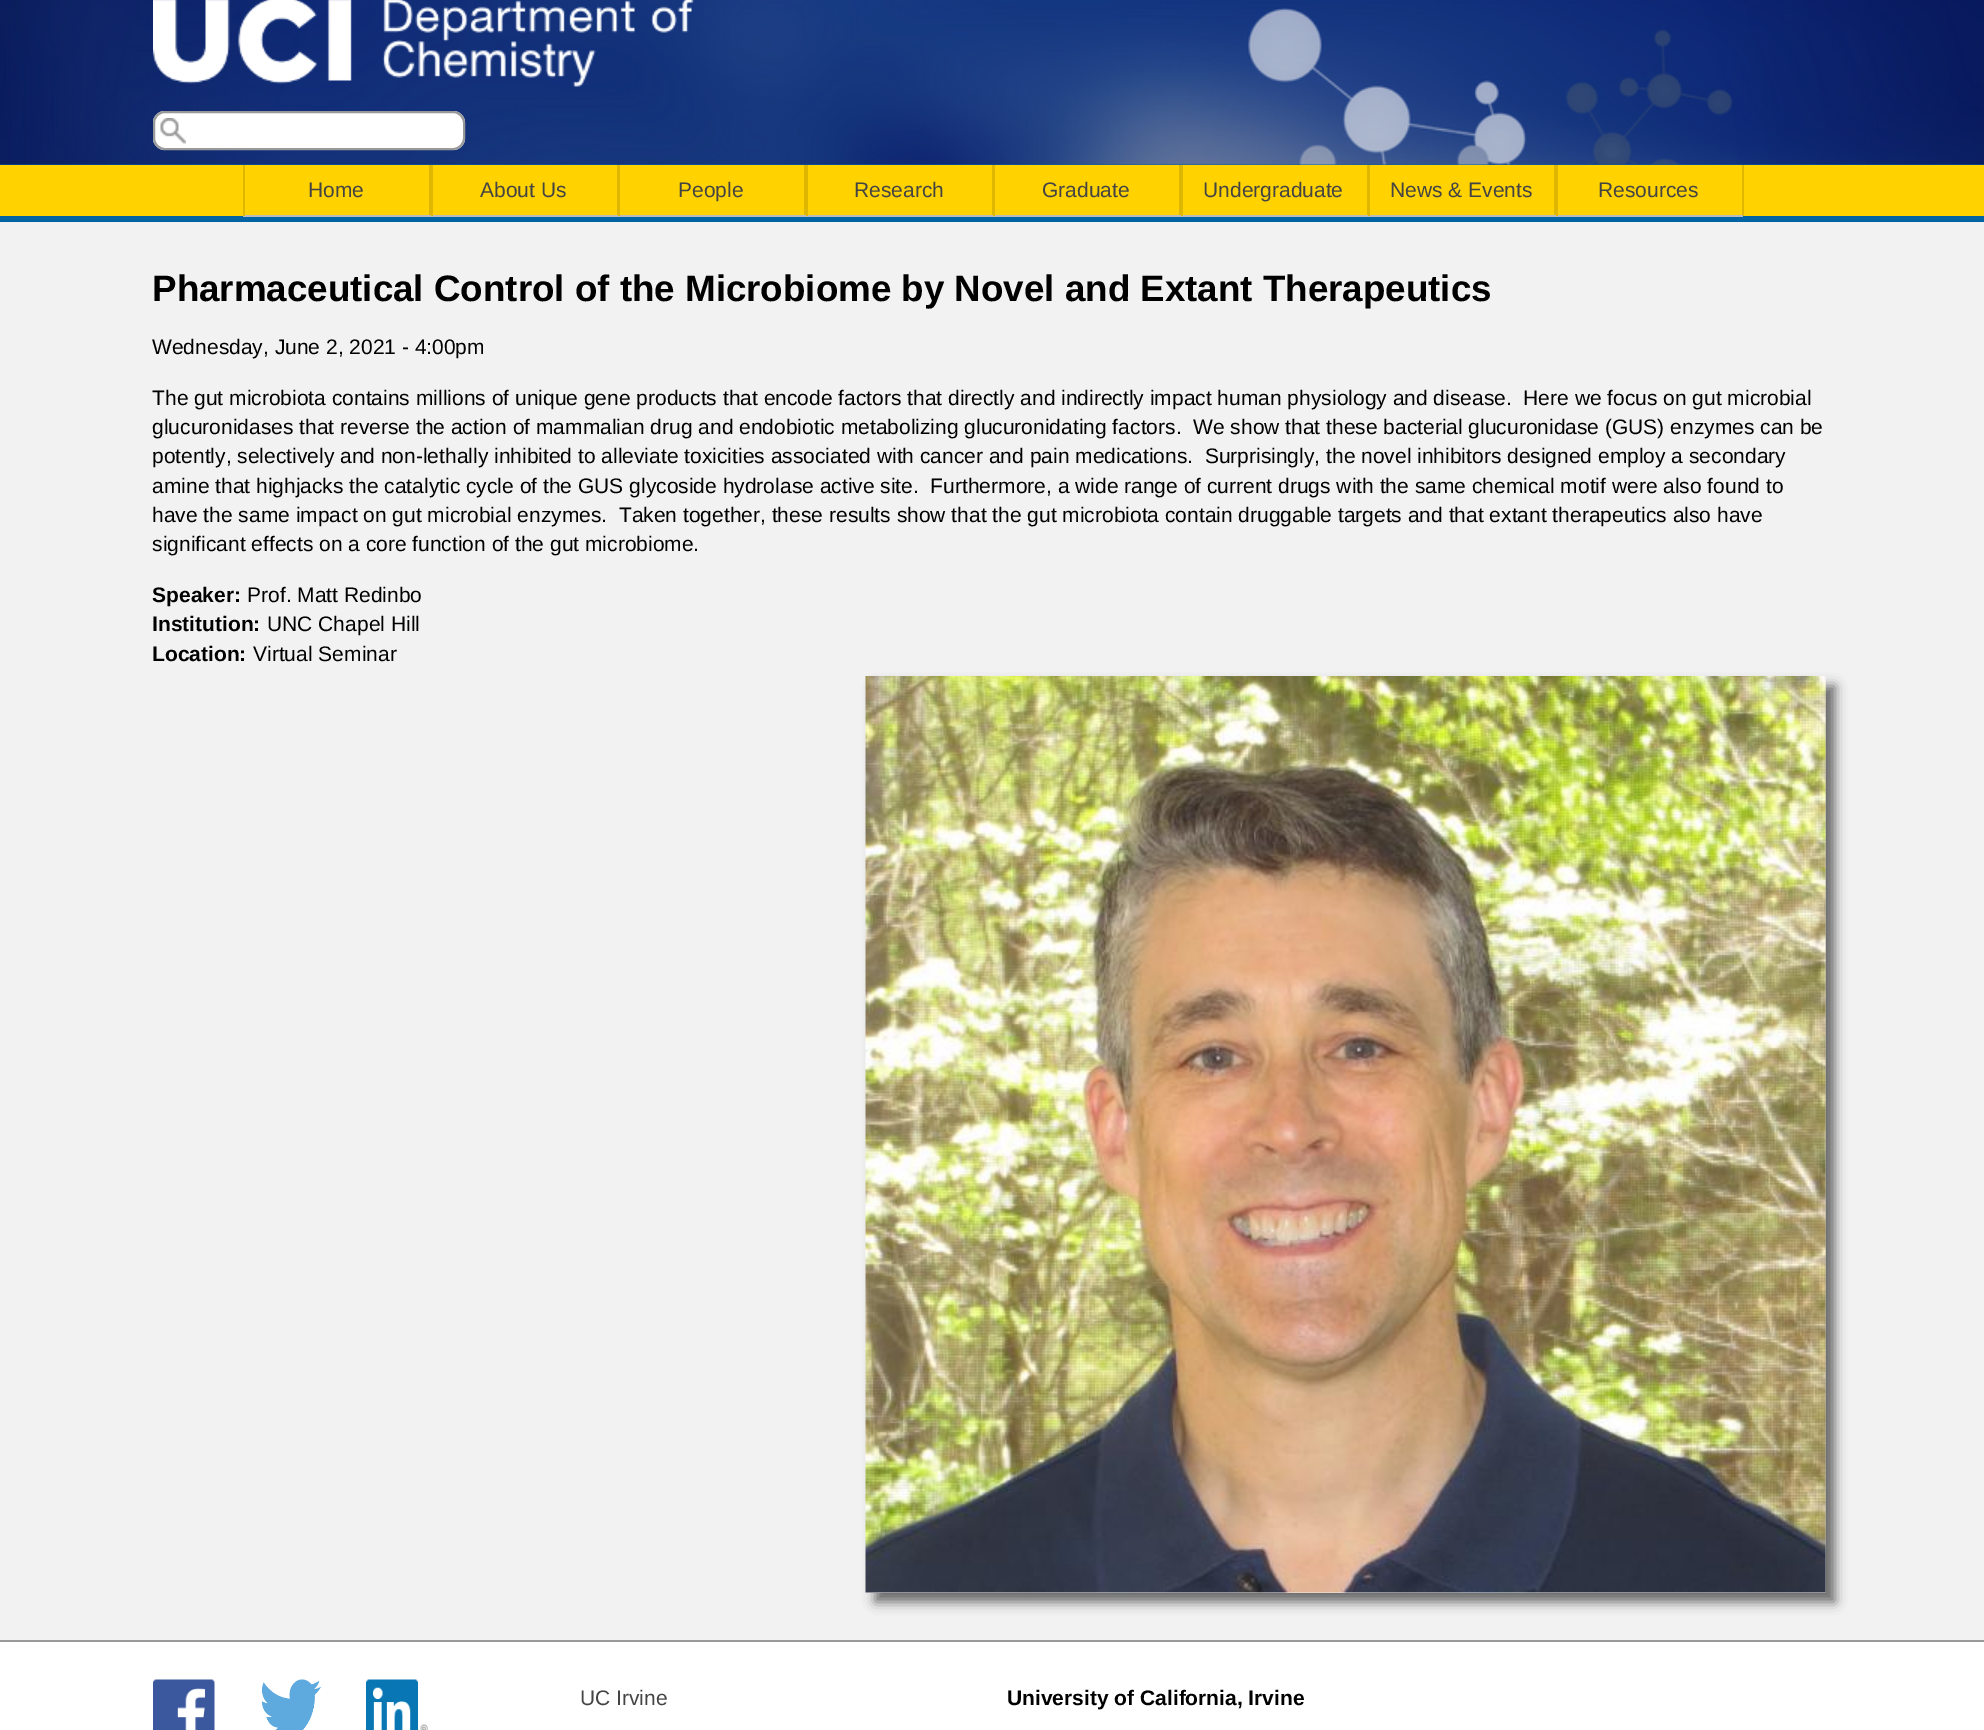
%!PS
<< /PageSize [1984 1730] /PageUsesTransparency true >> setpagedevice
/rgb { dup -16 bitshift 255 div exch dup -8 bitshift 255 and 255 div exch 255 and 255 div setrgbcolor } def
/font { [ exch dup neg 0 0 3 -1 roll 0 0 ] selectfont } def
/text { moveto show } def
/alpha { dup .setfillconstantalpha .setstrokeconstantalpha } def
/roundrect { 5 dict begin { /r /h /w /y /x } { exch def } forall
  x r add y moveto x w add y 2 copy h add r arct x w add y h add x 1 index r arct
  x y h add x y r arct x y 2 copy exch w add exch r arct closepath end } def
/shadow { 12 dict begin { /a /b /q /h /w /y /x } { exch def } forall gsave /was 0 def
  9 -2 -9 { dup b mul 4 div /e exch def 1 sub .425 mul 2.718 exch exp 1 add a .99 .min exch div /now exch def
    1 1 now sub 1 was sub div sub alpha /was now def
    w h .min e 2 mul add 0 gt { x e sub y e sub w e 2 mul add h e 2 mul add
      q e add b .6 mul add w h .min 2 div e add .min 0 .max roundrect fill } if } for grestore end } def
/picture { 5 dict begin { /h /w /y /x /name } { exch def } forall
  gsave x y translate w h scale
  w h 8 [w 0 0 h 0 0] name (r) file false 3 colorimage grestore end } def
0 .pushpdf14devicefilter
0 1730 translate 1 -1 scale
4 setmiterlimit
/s1 { /LiberationSans-Regular 21 font 16#444444 rgb } def
/s2 { /LiberationSans-Bold 36.75 font 16#000000 rgb } def
/s3 { /LiberationSans-Regular 21 font 16#000000 rgb } def
/s4 { /LiberationSans-Bold 21 font 16#000000 rgb } def
16#FFFFFF rgb
0 0 1984 1730 rectfill
16#0064A4 rgb
0 11 1984 154 rectfill
(pic1.raw) 0 0 1984 165 picture
(pic2.raw) 153 0 541 87 picture
16#FFFFFF rgb
153 111 312 39 12 roundrect fill
(pic3.raw) 160 118 26 26 picture
16#999999 rgb
2 setlinewidth
154 112 310 37 11 roundrect stroke
16#FFD200 rgb
0 165 1984 51 rectfill
16#0064A4 rgb
0 216 1984 6 rectfill
16#DFB600 rgb
429 165 2 51 rectfill
16#BBBBBB rgb
243 215 188 2 rectfill
16#DFB600 rgb
243 165 2 51 rectfill
s1
(Home) 308 197 text
16#DFB600 rgb
617 165 1 51 rectfill
16#BBBBBB rgb
431 215 187 2 rectfill
16#DFB600 rgb
431 165 2 51 rectfill
s1
(About Us) 480 197 text
16#DFB600 rgb
804 165 2 51 rectfill
16#BBBBBB rgb
618 215 188 2 rectfill
16#DFB600 rgb
618 165 2 51 rectfill
s1
(People) 678 197 text
16#DFB600 rgb
992 165 1 51 rectfill
16#BBBBBB rgb
806 215 187 2 rectfill
16#DFB600 rgb
806 165 2 51 rectfill
s1
(Research) 854 197 text
16#DFB600 rgb
1179 165 2 51 rectfill
16#BBBBBB rgb
993 215 188 2 rectfill
16#DFB600 rgb
993 165 2 51 rectfill
s1
(Graduate) 1042 197 text
16#DFB600 rgb
1367 165 1 51 rectfill
16#BBBBBB rgb
1181 215 187 2 rectfill
16#DFB600 rgb
1181 165 2 51 rectfill
s1
(Undergraduate) 1203 197 text
16#DFB600 rgb
1554 165 2 51 rectfill
16#BBBBBB rgb
1368 215 188 2 rectfill
16#DFB600 rgb
1368 165 2 51 rectfill
s1
(News & Events) 1390 197 text
16#DFB600 rgb
1742 165 2 51 rectfill
16#BBBBBB rgb
1556 215 187 2 rectfill
16#DFB600 rgb
1556 165 2 51 rectfill
s1
(Resources) 1598 197 text
16#F2F2F2 rgb
0 222 1984 1418 rectfill
s2
(Pharmaceutical Control of the Microbiome by Novel and Extant Therapeutics) 152 301 text
s3
(Wednesday, June 2, 2021 - 4:00pm) 152 354 text
(The gut microbiota contains millions of unique gene products that encode factors that directly and indirectly impact human physiology and disease.  Here we focus on gut microbial) 152 405 text
(glucuronidases that reverse the action of mammalian drug and endobiotic metabolizing glucuronidating factors.  We show that these bacterial glucuronidase \(GUS\) enzymes can be) 152 434 text
(potently, selectively and non-lethally inhibited to alleviate toxicities associated with cancer and pain medications.  Surprisingly, the novel inhibitors designed employ a secondary) 152 463 text
(amine that highjacks the catalytic cycle of the GUS glycoside hydrolase active site.  Furthermore, a wide range of current drugs with the same chemical motif were also found to) 152 493 text
(have the same impact on gut microbial enzymes.  Taken together, these results show that the gut microbiota contain druggable targets and that extant therapeutics also have) 152 522 text
(significant effects on a core function of the gut microbiome.) 152 551 text
s4
(Speaker:) 152 602 text
s3
(Prof. Matt Redinbo) 247 602 text
s4
(Institution:) 152 631 text
s3
(UNC Chapel Hill) 267 631 text
s4
(Location:) 152 661 text
s3
(Virtual Seminar) 253 661 text
16#666666 rgb
875 686 960 916 0 6 1 shadow
(pic4.raw) 865 676 961 917 picture
16#999999 rgb
0 1640 1984 2 rectfill
(pic5.raw) 153 1679 62 51 picture
(pic6.raw) 261 1679 60 51 picture
(pic7.raw) 366 1679 62 51 picture
s1
(UC Irvine) 580 1705 text
s4
(University of California, Irvine) 1007 1705 text
.poppdf14devicefilter showpage
